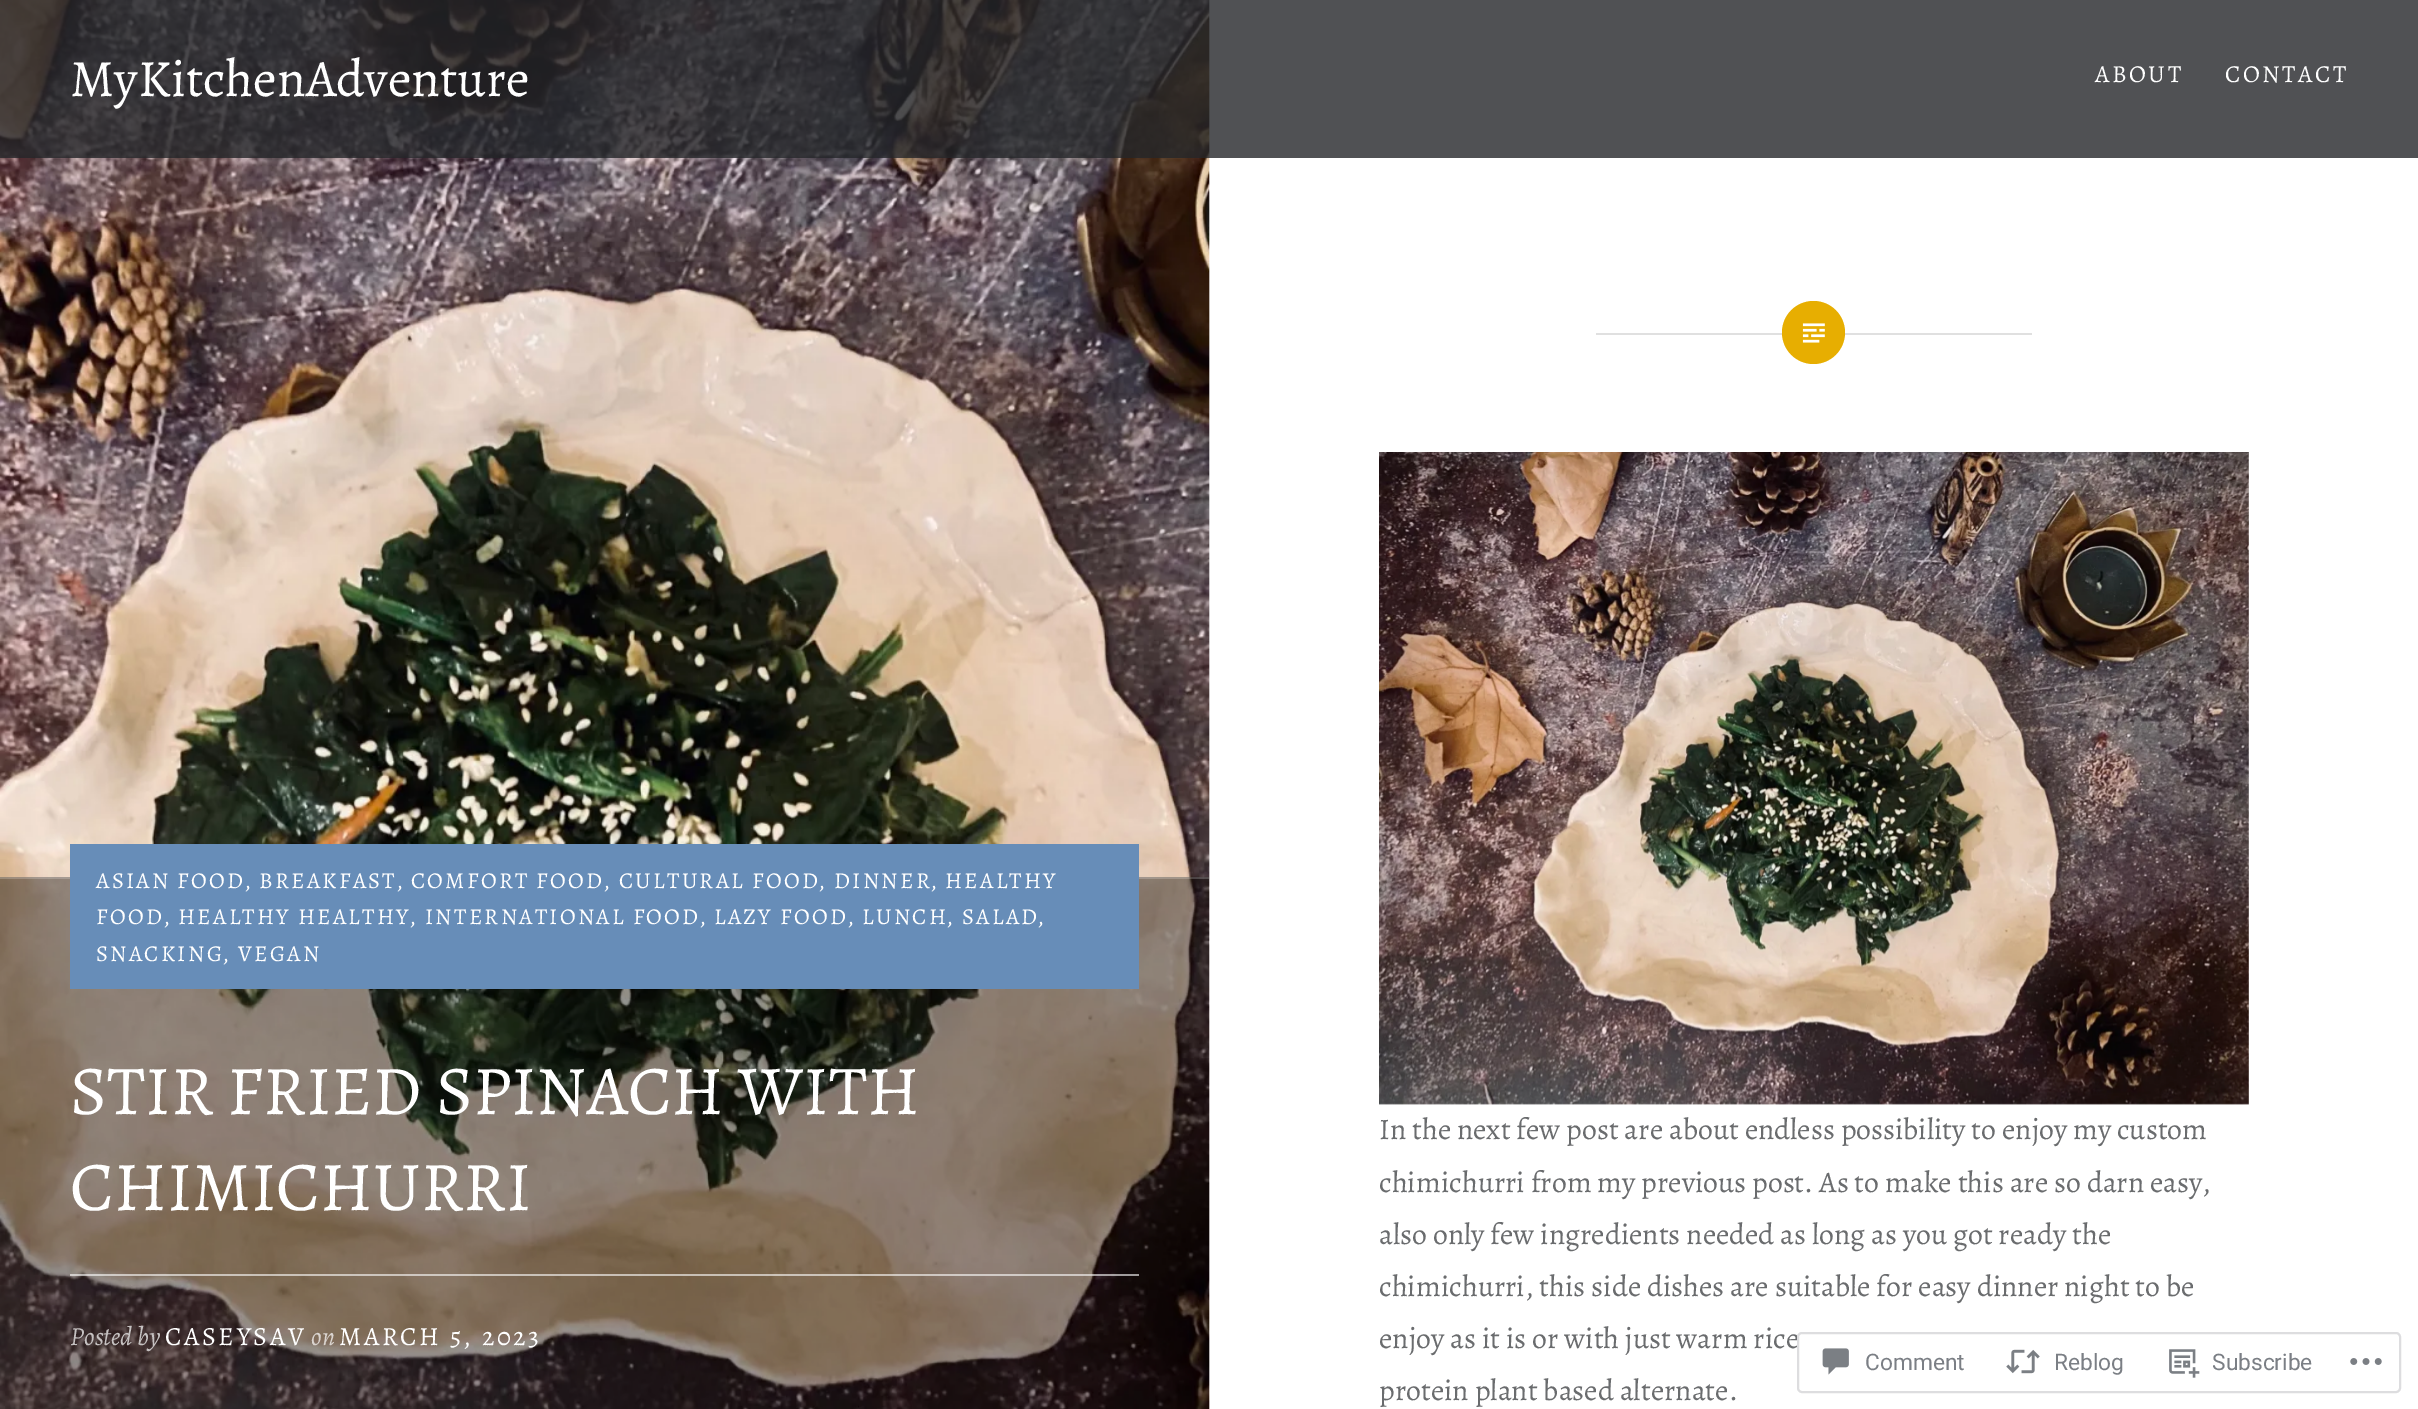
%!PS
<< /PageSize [2418 1409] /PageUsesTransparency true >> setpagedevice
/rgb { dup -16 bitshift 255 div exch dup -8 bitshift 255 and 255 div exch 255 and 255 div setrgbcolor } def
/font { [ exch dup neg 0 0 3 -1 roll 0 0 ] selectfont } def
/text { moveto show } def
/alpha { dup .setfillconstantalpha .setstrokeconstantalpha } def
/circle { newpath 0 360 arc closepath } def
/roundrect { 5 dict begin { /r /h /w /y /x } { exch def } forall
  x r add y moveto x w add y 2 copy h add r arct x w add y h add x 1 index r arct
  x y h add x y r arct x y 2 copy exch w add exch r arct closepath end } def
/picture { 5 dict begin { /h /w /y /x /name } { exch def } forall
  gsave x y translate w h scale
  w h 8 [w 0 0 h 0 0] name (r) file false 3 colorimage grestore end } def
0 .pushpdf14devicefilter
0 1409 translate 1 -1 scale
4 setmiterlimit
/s1 { /Alegreya-Regular 52.5 font 16#FFFFFF rgb } def
/s2 { /Alegreya-Regular 70 font 16#FFFFFF rgb } def
/s3 { /Alegreya-Italic 26.25 font 16#C5C1C1 rgb } def
/s4 { /Alegreya-Italic 26.25 font 16#DAD4CF rgb } def
/s5 { /Alegreya-Regular 29.75 font 16#6A6C6E rgb } def
/s6 { /Roboto-Regular 22.75 font 16#7B7F85 rgb } def
16#FFFFFF rgb
0 0 2418 1409 rectfill
(pic1.raw) 0 0 1210 1409 picture
0.8 alpha
16#242629 rgb
0 0 2418 158 rectfill
1 alpha
s1
(MyKitchenAdventure) 70 96 text
/Alegreya-Regular 24.5 font
2095 82 moveto 2.5 0 (ABOUT) ashow
2225 82 moveto 2.5 0 (CONTACT) ashow
16#E0E0E0 rgb
1596 333 436 2 rectfill
16#E7AE01 rgb
1813.5 332.5 31.5 circle fill
(pic2.raw) 1802 323 23 20 picture
0.4 alpha
16#000000 rgb
0 877 1209 532 rectfill
0.2 alpha
16#FFFFFF rgb
0 877 1209 2 rectfill
1 alpha
16#678DB8 rgb
70 844 1069 145 rectfill
/Alegreya-Regular 22.75 font
16#FFFFFF rgb
96 888 moveto 2.25 0 (ASIAN FOOD) ashow
/Alegreya-Italic 22.75 font
246 888 moveto 2.25 0 (,) ashow
/Alegreya-Regular 22.75 font
259 888 moveto 2.25 0 (BREAKFAST) ashow
/Alegreya-Italic 22.75 font
398 888 moveto 2.25 0 (,) ashow
/Alegreya-Regular 22.75 font
411 888 moveto 2.25 0 (COMFORT FOOD) ashow
/Alegreya-Italic 22.75 font
605 888 moveto 2.25 0 (,) ashow
/Alegreya-Regular 22.75 font
619 888 moveto 2.25 0 (CULTURAL FOOD) ashow
/Alegreya-Italic 22.75 font
820 888 moveto 2.25 0 (,) ashow
/Alegreya-Regular 22.75 font
834 888 moveto 2.25 0 (DINNER) ashow
/Alegreya-Italic 22.75 font
932 888 moveto 2.25 0 (,) ashow
/Alegreya-Regular 22.75 font
945 888 moveto 2.25 0 (HEALTHY) ashow
96 924 moveto 2.25 0 (FOOD) ashow
/Alegreya-Italic 22.75 font
165 924 moveto 2.25 0 (,) ashow
/Alegreya-Regular 22.75 font
178 924 moveto 2.25 0 (HEALTHY HEALTHY) ashow
/Alegreya-Italic 22.75 font
411 924 moveto 2.25 0 (,) ashow
/Alegreya-Regular 22.75 font
425 924 moveto 2.25 0 (INTERNATIONAL FOOD) ashow
/Alegreya-Italic 22.75 font
701 924 moveto 2.25 0 (,) ashow
/Alegreya-Regular 22.75 font
714 924 moveto 2.25 0 (LAZY FOOD) ashow
/Alegreya-Italic 22.75 font
849 924 moveto 2.25 0 (,) ashow
/Alegreya-Regular 22.75 font
862 924 moveto 2.25 0 (LUNCH) ashow
/Alegreya-Italic 22.75 font
948 924 moveto 2.25 0 (,) ashow
/Alegreya-Regular 22.75 font
962 924 moveto 2.25 0 (SALAD) ashow
/Alegreya-Italic 22.75 font
1039 924 moveto 2.25 0 (,) ashow
/Alegreya-Regular 22.75 font
96 961 moveto 2.25 0 (SNACKING) ashow
/Alegreya-Italic 22.75 font
224 961 moveto 2.25 0 (,) ashow
/Alegreya-Regular 22.75 font
238 961 moveto 2.25 0 (VEGAN) ashow
s2
(STIR FRIED SPINACH WITH) 70 1114 text
(CHIMICHURRI) 70 1210 text
0.6 alpha
70 1274 1069 2 rectfill
1 alpha
s3
(Posted by) 70 1345 text
/Alegreya-Regular 26.25 font
16#FFFFFF rgb
165 1345 moveto 2.6 0 (CASEYSAV) ashow
s4
(on) 311 1345 text
/Alegreya-Regular 26.25 font
16#FFFFFF rgb
339 1345 moveto 2.6 0 (MARCH 5, 2023) ashow
(pic3.raw) 1379 452 870 653 picture
s5
(In the next few post are about endless possibility to enjoy my custom) 1379 1139 text
(chimichurri from my previous post. As to make this are so darn easy,) 1379 1192 text
(also only few ingredients needed as long as you got ready the) 1379 1244 text
(chimichurri, this side dishes are suitable for easy dinner night to be) 1379 1296 text
(enjoy as it is or with just warm rice) 1379 1348 text
(protein plant based alternate.) 1379 1400 text
0.98 alpha
16#FFFFFF rgb
1797 1332 604 61 5 roundrect fill
16#DCDCDE rgb
2 setlinewidth
1798 1333 602 59 4 roundrect stroke
1 alpha
(pic4.raw) 1822 1348 27 27 picture
s6
(Comment) 1865 1370 text
(pic5.raw) 2006 1349 34 25 picture
(Reblog) 2054 1370 text
(pic6.raw) 2169 1349 31 29 picture
(Subscribe) 2212 1370 text
(pic7.raw) 2350 1358 32 7 picture
.poppdf14devicefilter showpage
